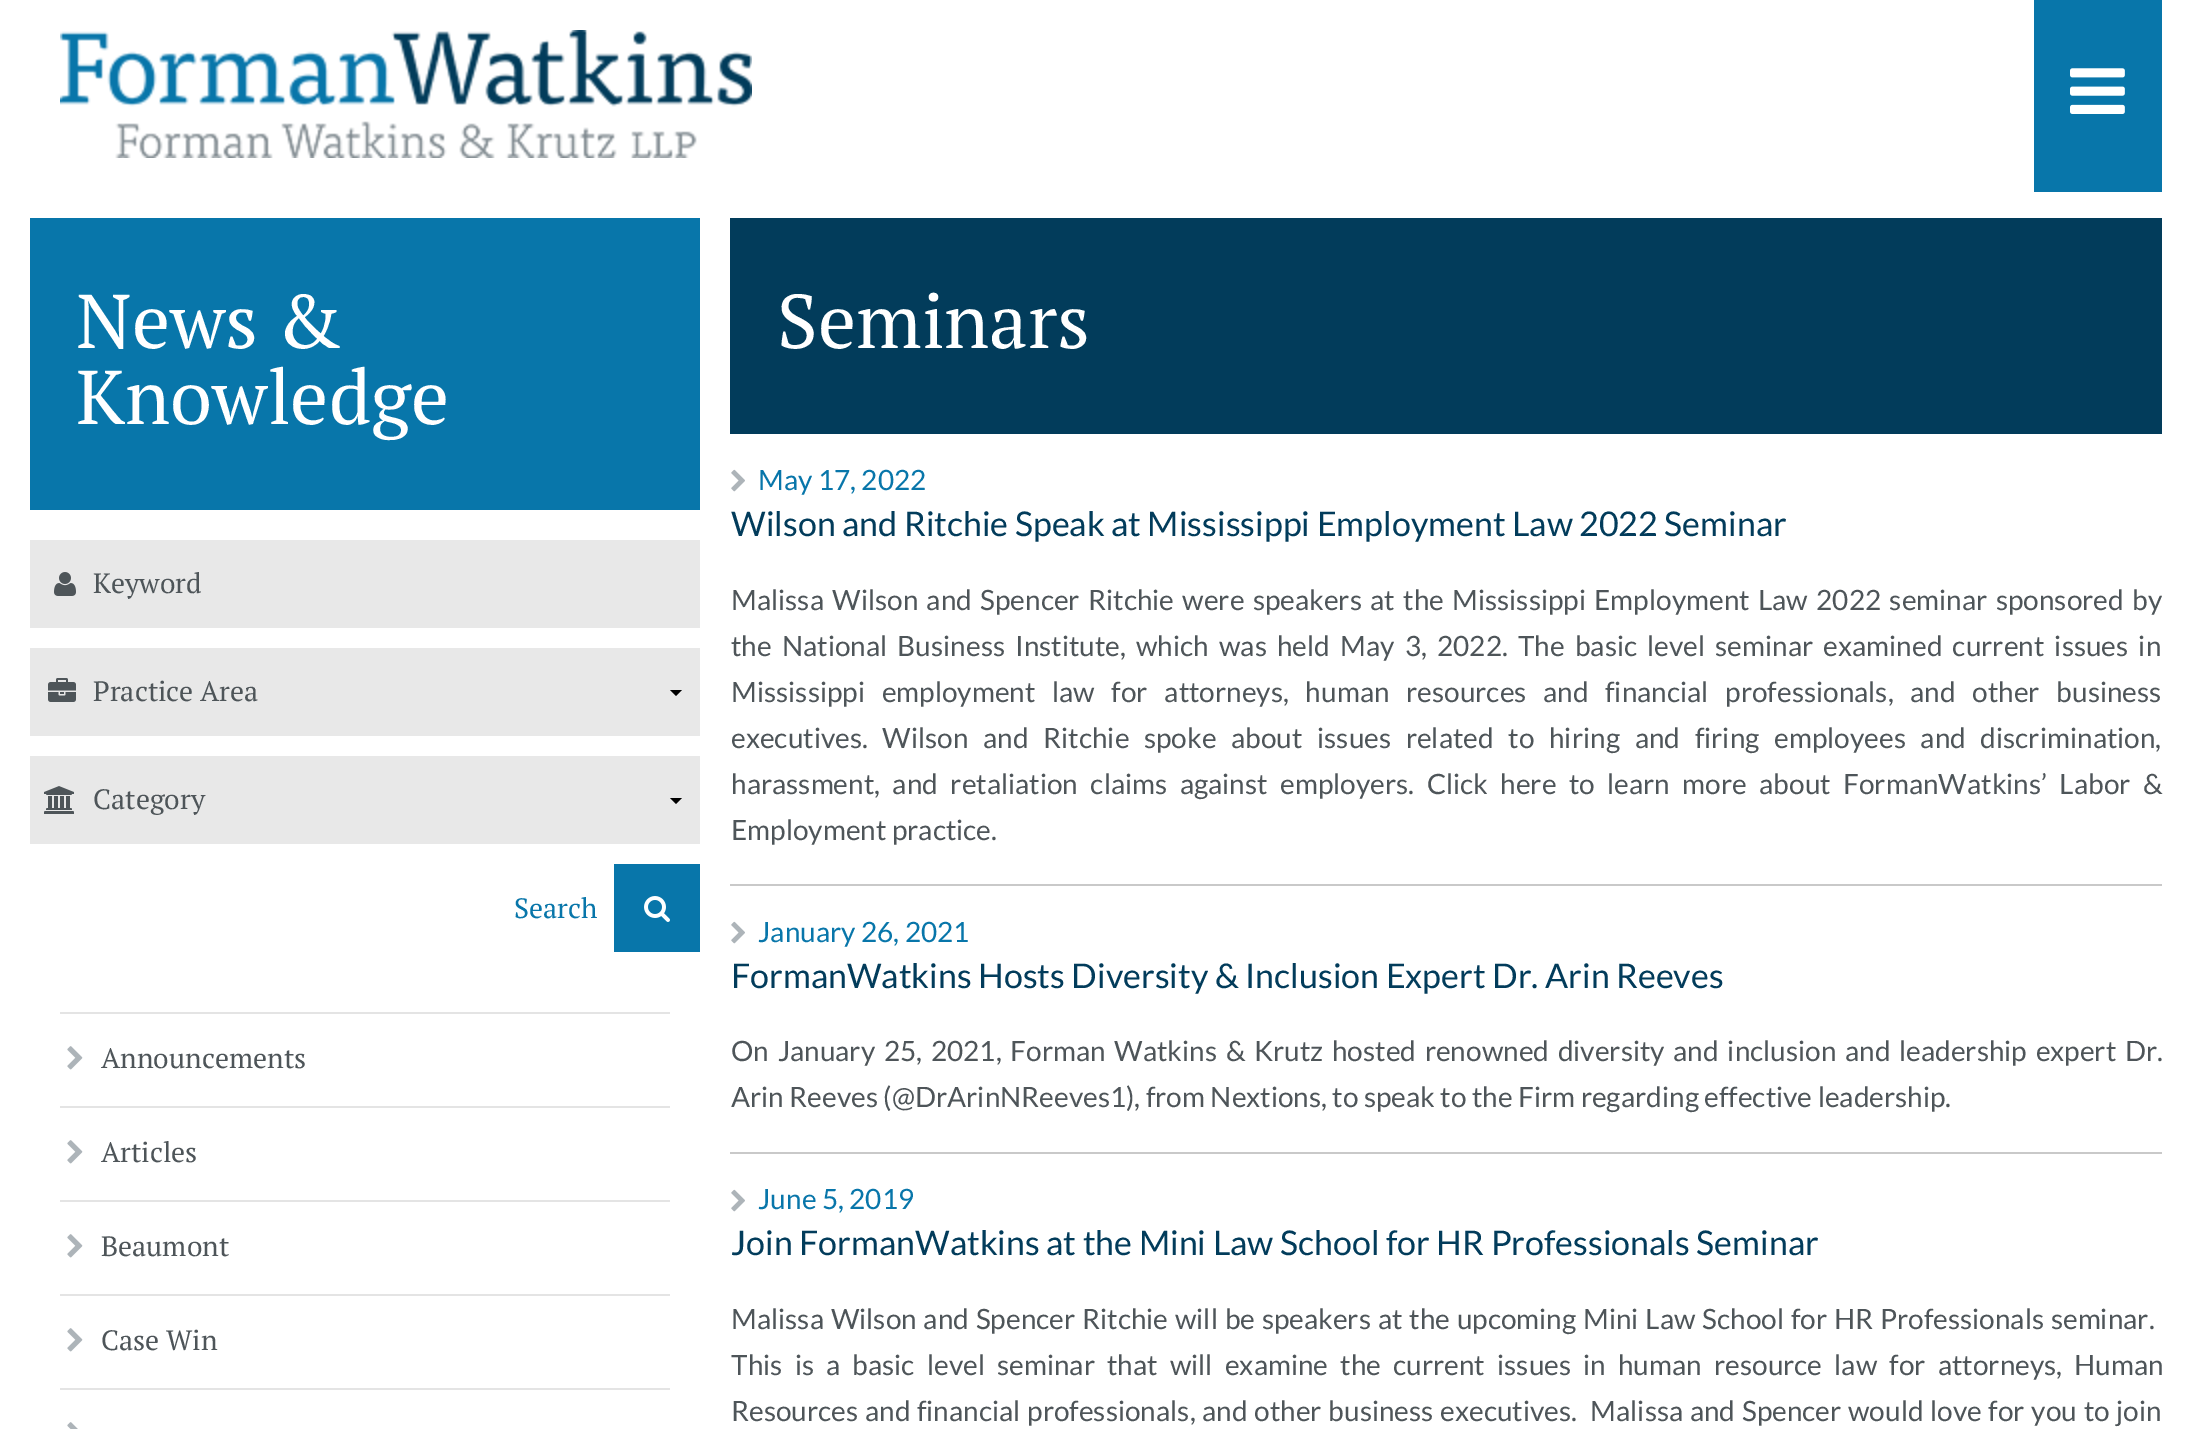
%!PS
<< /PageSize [2192 1429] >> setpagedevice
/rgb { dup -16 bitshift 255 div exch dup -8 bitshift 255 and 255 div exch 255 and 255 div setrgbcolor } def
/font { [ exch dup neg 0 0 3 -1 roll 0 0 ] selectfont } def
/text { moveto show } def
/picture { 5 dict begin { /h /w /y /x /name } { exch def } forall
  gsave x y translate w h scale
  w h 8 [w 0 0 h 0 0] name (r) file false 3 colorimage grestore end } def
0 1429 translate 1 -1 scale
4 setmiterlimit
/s1 { /PTSerif-Regular 76 font 16#FFFFFF rgb } def
/s2 { /PTSerif-Regular 28 font 16#4E5559 rgb } def
/s3 { /PTSerif-Regular 28 font 16#0876AA rgb } def
/s4 { /Lato-Regular 28 font 16#0876AA rgb } def
/s5 { /Lato-Regular 34 font 16#023C5B rgb } def
/s6 { /Lato-Regular 28 font 16#4E5559 rgb } def
16#FFFFFF rgb
0 0 2192 1429 rectfill
(pic1.raw) 60 30 692 128 picture
16#0876AA rgb
2034 0 128 192 rectfill
(pic2.raw) 2070 68 55 46 picture
30 218 670 292 rectfill
s1
(News &) 76 348 text
(Knowledge) 76 424 text
16#E8E8E8 rgb
30 540 670 88 rectfill
(pic3.raw) 54 572 22 24 picture
s2
(Keyword) 93 593 text
16#E8E8E8 rgb
30 648 670 88 rectfill
(pic4.raw) 48 678 28 24 picture
16#000000 rgb
682 690 moveto 676 696 lineto 670 690 lineto closepath fill
s2
(Practice Area) 93 701 text
16#E8E8E8 rgb
30 756 670 88 rectfill
(pic5.raw) 44 786 30 28 picture
16#000000 rgb
682 798 moveto 676 804 lineto 670 798 lineto closepath fill
s2
(Category) 93 809 text
s3
(Search) 514 918 text
614 864 86 88 rectfill
(pic6.raw) 644 896 26 26 picture
16#E4E4E4 rgb
60 1012 610 2 rectfill
60 1106 610 2 rectfill
(pic7.raw) 67 1046 16 24 picture
s2
(Announcements) 101 1068 text
16#E4E4E4 rgb
60 1200 610 2 rectfill
(pic7.raw) 67 1140 16 24 picture
s2
(Articles) 101 1162 text
16#E4E4E4 rgb
60 1294 610 2 rectfill
(pic7.raw) 67 1234 16 24 picture
s2
(Beaumont) 101 1256 text
16#E4E4E4 rgb
60 1388 610 2 rectfill
(pic7.raw) 67 1328 16 24 picture
s2
(Case Win) 101 1350 text
(pic8.raw) 67 1422 11 7 picture
16#023C5B rgb
730 218 1432 216 rectfill
s1
(Seminars) 777 348 text
16#C9C9C9 rgb
730 884 1432 2 rectfill
(pic9.raw) 731 469 14 23 picture
s4
(May 17, 2022) 758 490 text
s5
(Wilson and Ritchie Speak at Mississippi Employment Law 2022 Seminar) 731 536 text
/Lato-Regular 28 font
16#4E5559 rgb
731 610 moveto 2.9 0 32 (Malissa Wilson and Spencer Ritchie were speakers at the Mississippi Employment Law 2022 seminar sponsored by) widthshow
731 656 moveto 4.75 0 32 (the National Business Institute, which was held May 3, 2022. The basic level seminar examined current issues in) widthshow
731 702 moveto 11.25 0 32 (Mississippi employment law for attorneys, human resources and financial professionals, and other business) widthshow
731 748 moveto 9.25 0 32 (executives. Wilson and Ritchie spoke about issues related to hiring and firing employees and discrimination,) widthshow
731 794 moveto 7 0 32 (harassment, and retaliation claims against employers. Click here to learn more about FormanWatkins’ Labor &) widthshow
(Employment practice.) 731 840 text
16#C9C9C9 rgb
730 1152 1432 2 rectfill
(pic9.raw) 731 921 14 23 picture
s4
(January 26, 2021) 758 942 text
s5
(FormanWatkins Hosts Diversity & Inclusion Expert Dr. Arin Reeves) 731 988 text
/Lato-Regular 28 font
16#4E5559 rgb
731 1061 moveto 3.25 0 32 (On January 25, 2021, Forman Watkins & Krutz hosted renowned diversity and inclusion and leadership expert Dr.) widthshow
(Arin Reeves \(@DrArinNReeves1\), from Nextions, to speak to the Firm regarding effective leadership.) 731 1107 text
(pic9.raw) 731 1189 14 23 picture
s4
(June 5, 2019) 758 1209 text
s5
(Join FormanWatkins at the Mini Law School for HR Professionals Seminar) 731 1255 text
/Lato-Regular 28 font
16#4E5559 rgb
731 1329 moveto 1.4 0 32 (Malissa Wilson and Spencer Ritchie will be speakers at the upcoming Mini Law School for HR Professionals seminar.) widthshow
731 1375 moveto 6.75 0 32 (This is a basic level seminar that will examine the current issues in human resource law for attorneys, Human) widthshow
731 1421 moveto 1.3 0 32 (Resources and financial professionals, and other business executives.  Malissa and Spencer would love for you to join) widthshow
showpage
